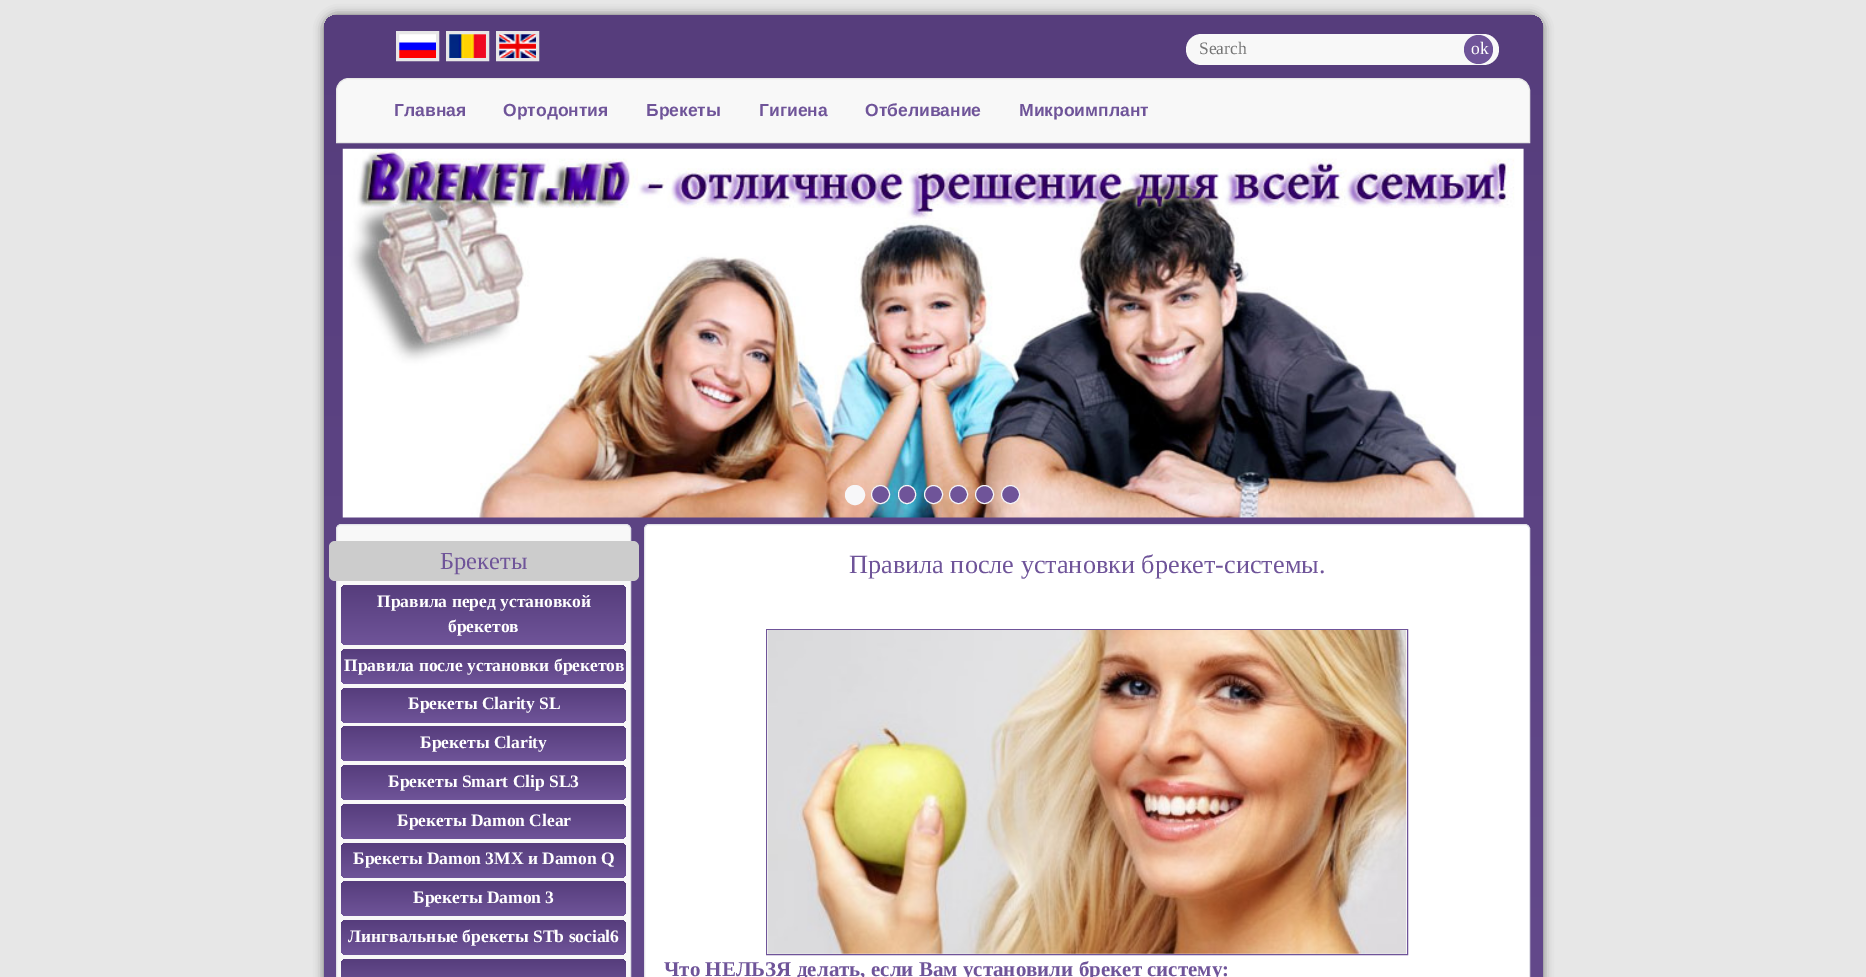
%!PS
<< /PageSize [1866 977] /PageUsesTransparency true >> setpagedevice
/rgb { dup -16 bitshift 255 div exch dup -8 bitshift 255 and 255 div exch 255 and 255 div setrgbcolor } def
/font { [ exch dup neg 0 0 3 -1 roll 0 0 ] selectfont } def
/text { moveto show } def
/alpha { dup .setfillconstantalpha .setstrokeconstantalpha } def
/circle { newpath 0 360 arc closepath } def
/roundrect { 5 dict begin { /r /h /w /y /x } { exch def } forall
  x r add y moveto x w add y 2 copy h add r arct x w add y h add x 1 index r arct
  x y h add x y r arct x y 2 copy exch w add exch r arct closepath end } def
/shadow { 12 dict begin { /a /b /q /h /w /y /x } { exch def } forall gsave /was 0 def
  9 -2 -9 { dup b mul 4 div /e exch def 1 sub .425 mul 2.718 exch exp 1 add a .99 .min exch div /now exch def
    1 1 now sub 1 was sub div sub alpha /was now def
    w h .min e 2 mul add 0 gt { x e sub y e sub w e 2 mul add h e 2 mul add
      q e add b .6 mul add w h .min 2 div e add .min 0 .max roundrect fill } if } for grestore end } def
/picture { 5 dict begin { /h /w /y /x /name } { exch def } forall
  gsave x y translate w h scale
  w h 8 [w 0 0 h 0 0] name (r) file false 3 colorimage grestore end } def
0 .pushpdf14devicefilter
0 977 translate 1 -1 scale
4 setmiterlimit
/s1 { /LiberationSerif-Regular 17.5 font 16#757575 rgb } def
/s2 { /LiberationSerif-Regular 17.5 font 16#FFFFFF rgb } def
/s3 { /LiberationSans-Bold 17.5 font 16#6F5499 rgb } def
/s4 { /LiberationSerif-Regular 24.5 font 16#6F5499 rgb } def
/s5 { /LiberationSerif-Bold 17.5 font 16#FFFFFF rgb } def
/s6 { /LiberationSerif-Regular 26.25 font 16#6F5499 rgb } def
/s7 { /LiberationSerif-Bold 21 font 16#6F5499 rgb } def
16#E7E7E7 rgb
0 0 1866 977 rectfill
16#323232 rgb
324 15 1219 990 13 5 0.7 shadow
gsave 324 15 1219 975 13 roundrect clip newpath
<< /ShadingType 2 /ColorSpace /DeviceRGB /Coords [933 15 933 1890] /Extend [true true] /Function << /FunctionType 2 /Domain [0 1] /C0 [0.337 0.239 0.486] /C1 [0.435 0.329 0.6] /N 1 >> >> shfill grestore
(pic1.raw) 399 34 37 24 picture
16#E7E7E7 rgb
3 setlinewidth
397.5 32.5 40 27 rectstroke
(pic2.raw) 449 34 37 24 picture
447.5 32.5 40 27 rectstroke
(pic3.raw) 499 34 37 24 picture
497.5 32.5 40 27 rectstroke
16#F8F8F8 rgb
1186 34 313 31 15.5 roundrect fill
s1
(Search) 1199 54 text
16#6F5499 rgb
1478.5 49.5 14.5 circle fill
s2
(ok) 1471 54 text
16#F8F8F8 rgb
349 78.5 moveto 1517 78.5 lineto 1524 78.5 1529.5 84 1529.5 91 curveto 1529.5 142.5 lineto 336.5 142.5 lineto 336.5 91 lineto 336.5 84 342 78.5 349 78.5 curveto closepath gsave fill grestore
16#E7E7E7 rgb
1 setlinewidth
stroke
s3
(Главная) 394 116 text
(Ортодонтия) 503 116 text
(Брекеты) 646 116 text
(Гигиена) 759 116 text
(Отбеливание) 865 116 text
(Микроимплант) 1019 116 text
(pic4.raw) 342 148 1182 370 picture
16#F7F7F9 rgb
855 495 9.5 circle gsave fill grestore
stroke
16#6F5499 rgb
880.5 494.5 9 circle gsave fill grestore
16#F7F7F9 rgb
stroke
16#6F5499 rgb
898.5 485.5 17 18 8.5 roundrect gsave fill grestore
16#F7F7F9 rgb
stroke
16#6F5499 rgb
933.5 494.5 9 circle gsave fill grestore
16#F7F7F9 rgb
stroke
16#6F5499 rgb
958.5 494.5 9 circle gsave fill grestore
16#F7F7F9 rgb
stroke
16#6F5499 rgb
984.5 494.5 9 circle gsave fill grestore
16#F7F7F9 rgb
stroke
16#6F5499 rgb
1010.5 494.5 9 circle gsave fill grestore
16#F7F7F9 rgb
stroke
16#F8F8F8 rgb
336.5 524.5 294 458 4.5 roundrect gsave fill grestore
16#E1E1E8 rgb
stroke
16#CCCCCC rgb
329 541 310 40 6 roundrect fill
s4
(Брекеты) 440 569 text
gsave 341 585 285 60 5 roundrect clip newpath
<< /ShadingType 2 /ColorSpace /DeviceRGB /Coords [484 585 484 645] /Extend [true true] /Function << /FunctionType 2 /Domain [0 1] /C0 [0.337 0.239 0.486] /C1 [0.435 0.329 0.6] /N 1 >> >> shfill grestore
s5
(Правила перед установкой) 377 607 text
(брекетов) 448 632 text
gsave 341 649 285 35 5 roundrect clip newpath
<< /ShadingType 2 /ColorSpace /DeviceRGB /Coords [484 649 484 684] /Extend [true true] /Function << /FunctionType 2 /Domain [0 1] /C0 [0.337 0.239 0.486] /C1 [0.435 0.329 0.6] /N 1 >> >> shfill grestore
(Правила после установки брекетов) 344 671 text
gsave 341 688 285 35 5 roundrect clip newpath
<< /ShadingType 2 /ColorSpace /DeviceRGB /Coords [484 688 484 723] /Extend [true true] /Function << /FunctionType 2 /Domain [0 1] /C0 [0.337 0.239 0.486] /C1 [0.435 0.329 0.6] /N 1 >> >> shfill grestore
(Брекеты Clarity SL) 408 709 text
gsave 341 726 285 35 5 roundrect clip newpath
<< /ShadingType 2 /ColorSpace /DeviceRGB /Coords [484 726 484 761] /Extend [true true] /Function << /FunctionType 2 /Domain [0 1] /C0 [0.337 0.239 0.486] /C1 [0.435 0.329 0.6] /N 1 >> >> shfill grestore
(Брекеты Clarity) 420 748 text
gsave 341 765 285 35 5 roundrect clip newpath
<< /ShadingType 2 /ColorSpace /DeviceRGB /Coords [484 765 484 800] /Extend [true true] /Function << /FunctionType 2 /Domain [0 1] /C0 [0.337 0.239 0.486] /C1 [0.435 0.329 0.6] /N 1 >> >> shfill grestore
(Брекеты Smart Clip SL3) 388 787 text
gsave 341 804 285 35 5 roundrect clip newpath
<< /ShadingType 2 /ColorSpace /DeviceRGB /Coords [484 804 484 839] /Extend [true true] /Function << /FunctionType 2 /Domain [0 1] /C0 [0.337 0.239 0.486] /C1 [0.435 0.329 0.6] /N 1 >> >> shfill grestore
(Брекеты Damon Clear) 397 826 text
gsave 341 843 285 35 5 roundrect clip newpath
<< /ShadingType 2 /ColorSpace /DeviceRGB /Coords [484 843 484 878] /Extend [true true] /Function << /FunctionType 2 /Domain [0 1] /C0 [0.337 0.239 0.486] /C1 [0.435 0.329 0.6] /N 1 >> >> shfill grestore
(Брекеты Damon 3MX и Damon Q) 353 864 text
gsave 341 881 285 35 5 roundrect clip newpath
<< /ShadingType 2 /ColorSpace /DeviceRGB /Coords [484 881 484 916] /Extend [true true] /Function << /FunctionType 2 /Domain [0 1] /C0 [0.337 0.239 0.486] /C1 [0.435 0.329 0.6] /N 1 >> >> shfill grestore
(Брекеты Damon 3) 413 903 text
gsave 341 920 285 35 5 roundrect clip newpath
<< /ShadingType 2 /ColorSpace /DeviceRGB /Coords [484 920 484 955] /Extend [true true] /Function << /FunctionType 2 /Domain [0 1] /C0 [0.337 0.239 0.486] /C1 [0.435 0.329 0.6] /N 1 >> >> shfill grestore
(Лингвальные брекеты STb social6) 348 942 text
gsave 341 959 285 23 5 roundrect clip newpath
<< /ShadingType 2 /ColorSpace /DeviceRGB /Coords [484 959 484 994] /Extend [true true] /Function << /FunctionType 2 /Domain [0 1] /C0 [0.337 0.239 0.486] /C1 [0.435 0.329 0.6] /N 1 >> >> shfill grestore
644.5 524.5 885 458 4.5 roundrect gsave fill grestore
16#E1E1E8 rgb
stroke
s6
(Правила после установки брекет-системы.) 849 573 text
766.5 629.5 641 325 rectstroke
(pic5.raw) 767 630 640 324 picture
s7
(Что НЕЛЬЗЯ делать, если Вам установили брекет систему:) 664 976 text
.poppdf14devicefilter showpage
